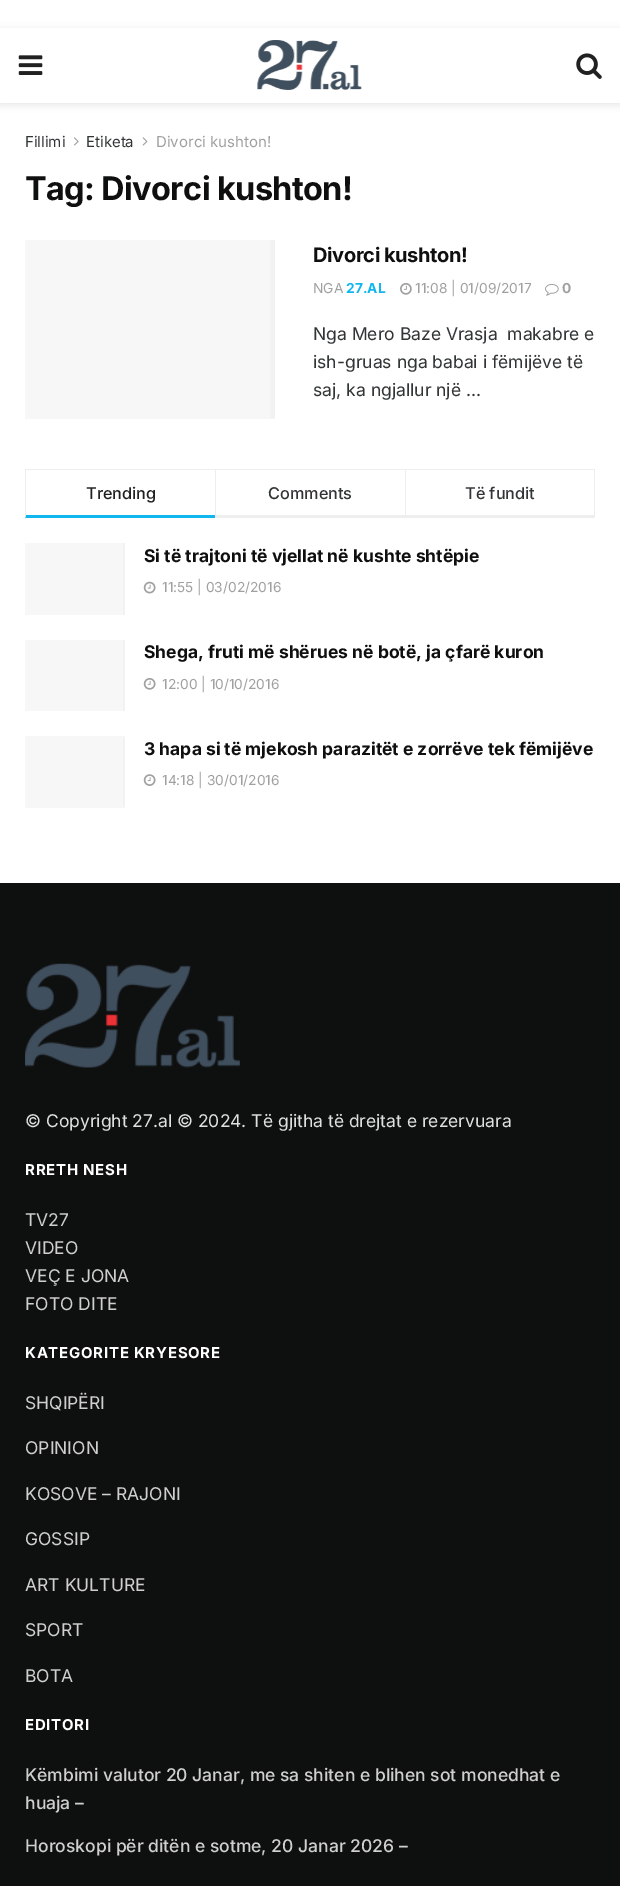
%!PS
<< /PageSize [620 1886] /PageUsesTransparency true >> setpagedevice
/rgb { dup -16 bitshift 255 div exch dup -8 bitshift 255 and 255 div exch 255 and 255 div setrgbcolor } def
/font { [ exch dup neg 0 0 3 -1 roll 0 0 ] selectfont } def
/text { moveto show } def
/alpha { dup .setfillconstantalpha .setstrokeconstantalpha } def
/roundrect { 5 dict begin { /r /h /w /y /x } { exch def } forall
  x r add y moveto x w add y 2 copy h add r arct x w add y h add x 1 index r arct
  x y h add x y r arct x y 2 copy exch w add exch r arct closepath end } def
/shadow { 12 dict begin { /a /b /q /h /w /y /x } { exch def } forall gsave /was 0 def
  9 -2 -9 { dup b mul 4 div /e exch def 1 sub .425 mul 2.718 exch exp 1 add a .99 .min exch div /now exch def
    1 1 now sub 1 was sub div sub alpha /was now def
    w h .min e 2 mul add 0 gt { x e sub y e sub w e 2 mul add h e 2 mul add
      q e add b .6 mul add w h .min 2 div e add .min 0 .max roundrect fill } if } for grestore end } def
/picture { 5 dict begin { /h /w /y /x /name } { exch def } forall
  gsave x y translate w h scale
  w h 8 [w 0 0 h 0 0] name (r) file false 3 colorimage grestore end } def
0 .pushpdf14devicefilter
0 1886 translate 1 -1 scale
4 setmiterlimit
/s1 { /Inter-Regular 15 font 16#313535 rgb } def
/s2 { /Inter-Regular 15 font 16#A0A0A0 rgb } def
/s3 { /Inter-Regular 13.75 font 16#A0A0A0 rgb } def
/s4 { /Inter-Bold 13.75 font 16#0FB7EE rgb } def
/s5 { /Inter-Bold 13.75 font 16#A0A0A0 rgb } def
/s6 { /Inter-Regular 17.5 font 16#313535 rgb } def
/s7 { /Inter-Medium 16.25 font 16#212121 rgb } def
/s8 { /Inter-Medium 16.25 font 16#313535 rgb } def
/s9 { /Inter-Bold 17.5 font 16#0E0F0F rgb } def
/s10 { /Inter-Regular 17.5 font 16#DFE1E1 rgb } def
/s11 { /Inter-Regular 17.5 font 16#CFCFCF rgb } def
/s12 { /Inter-Medium 17.5 font 16#CFCFCF rgb } def
16#FFFFFF rgb
0 0 620 1886 rectfill
16#000000 rgb
0 30 620 75 0 4 0.1 shadow
16#FFFFFF rgb
0 28 620 75 rectfill
(pic1.raw) 18 55 25 20 picture
(pic2.raw) 257 40 105 50 picture
(pic3.raw) 576 53 26 26 picture
s1
(Fillimi) 25 147 text
(pic4.raw) 74 137 5 9 picture
(Etiketa) 86 147 text
(pic5.raw) 142 137 6 9 picture
s2
(Divorci kushton!) 156 147 text
/Inter-Bold 32.5 font
16#0E0F0F rgb
25 200 moveto -0.65 0 (Tag: Divorci kushton!) ashow
16#F7F7F7 rgb
25 240 250 179 rectfill
16#F2F2F2 rgb
270 240 5 178 rectfill
/Inter-Bold 20 font
16#0E0F0F rgb
313 262 moveto -0.4 0 (Divorci kushton!) ashow
s3
(NGA) 313 293 text
s4
(27.AL) 346 293 text
(pic6.raw) 400 283 12 12 picture
s3
(11:08 | 01/09/2017) 415 293 text
(pic7.raw) 545 284 14 12 picture
s5
(0) 562 293 text
s6
(Nga Mero Baze Vrasja  makabre e) 313 340 text
(ish-gruas nga babai i fëmijëve të) 313 368 text
(saj, ka ngjallur një ...) 313 396 text
16#EEEEEE rgb
25 469 570 1 rectfill
16#0FB7EE rgb
215 518 moveto 25 518 lineto 26 515 lineto 215 515 lineto closepath fill
16#EEEEEE rgb
25 518 moveto 25 469 lineto 26 470 lineto 26 515 lineto closepath fill
s7
(Trending) 86 499 text
16#EEEEEE rgb
215 515 190 3 rectfill
215 469 1 49 rectfill
s8
(Comments) 268 499 text
16#EEEEEE rgb
594 469 1 49 rectfill
405 515 190 3 rectfill
405 469 1 49 rectfill
s8
(Të fundit) 465 499 text
16#F7F7F7 rgb
25 543 98 72 rectfill
16#F2F2F2 rgb
123 543 2 72 rectfill
s9
(Si të trajtoni të vjellat në kushte shtëpie) 144 562 text
(pic8.raw) 143 581 13 13 picture
s3
(11:55 | 03/02/2016) 162 592 text
16#F7F7F7 rgb
25 640 98 71 rectfill
16#F2F2F2 rgb
123 640 2 71 rectfill
s9
(Shega, fruti më shërues në botë, ja çfarë kuron) 144 658 text
(pic9.raw) 143 678 13 12 picture
s3
(12:00 | 10/10/2016) 162 689 text
16#F7F7F7 rgb
25 736 100 72 rectfill
16#F2F2F2 rgb
123 737 2 70 rectfill
s9
(3 hapa si të mjekosh parazitët e zorrëve tek fëmijëve) 144 755 text
(pic10.raw) 143 774 13 12 picture
s3
(14:18 | 30/01/2016) 162 785 text
16#0E0F0F rgb
0 883 620 1003 rectfill
(pic11.raw) 25 963 215 105 picture
s10
(© Copyright 27.al © 2024. Të gjitha të drejtat e rezervuara) 25 1127 text
/Inter-Bold 15 font
16#FFFFFF rgb
25 1175 moveto 0.75 0 (RRETH NESH) ashow
s11
(TV27) 25 1226 text
(VIDEO) 25 1254 text
(VEÇ E JONA) 25 1282 text
(FOTO DITE) 25 1310 text
/Inter-Bold 15 font
16#FFFFFF rgb
25 1358 moveto 0.75 0 (KATEGORITE KRYESORE) ashow
s11
(SHQIPËRI) 25 1409 text
(OPINION) 25 1454 text
(KOSOVE – RAJONI) 25 1500 text
(GOSSIP) 25 1545 text
(ART KULTURE) 25 1591 text
(SPORT) 25 1636 text
(BOTA) 25 1682 text
/Inter-Bold 15 font
16#FFFFFF rgb
25 1730 moveto 0.75 0 (EDITORI) ashow
s12
(Këmbimi valutor 20 Janar, me sa shiten e blihen sot monedhat e) 25 1781 text
(huaja –) 25 1809 text
(Horoskopi për ditën e sotme, 20 Janar 2026 –) 25 1852 text
.poppdf14devicefilter showpage
